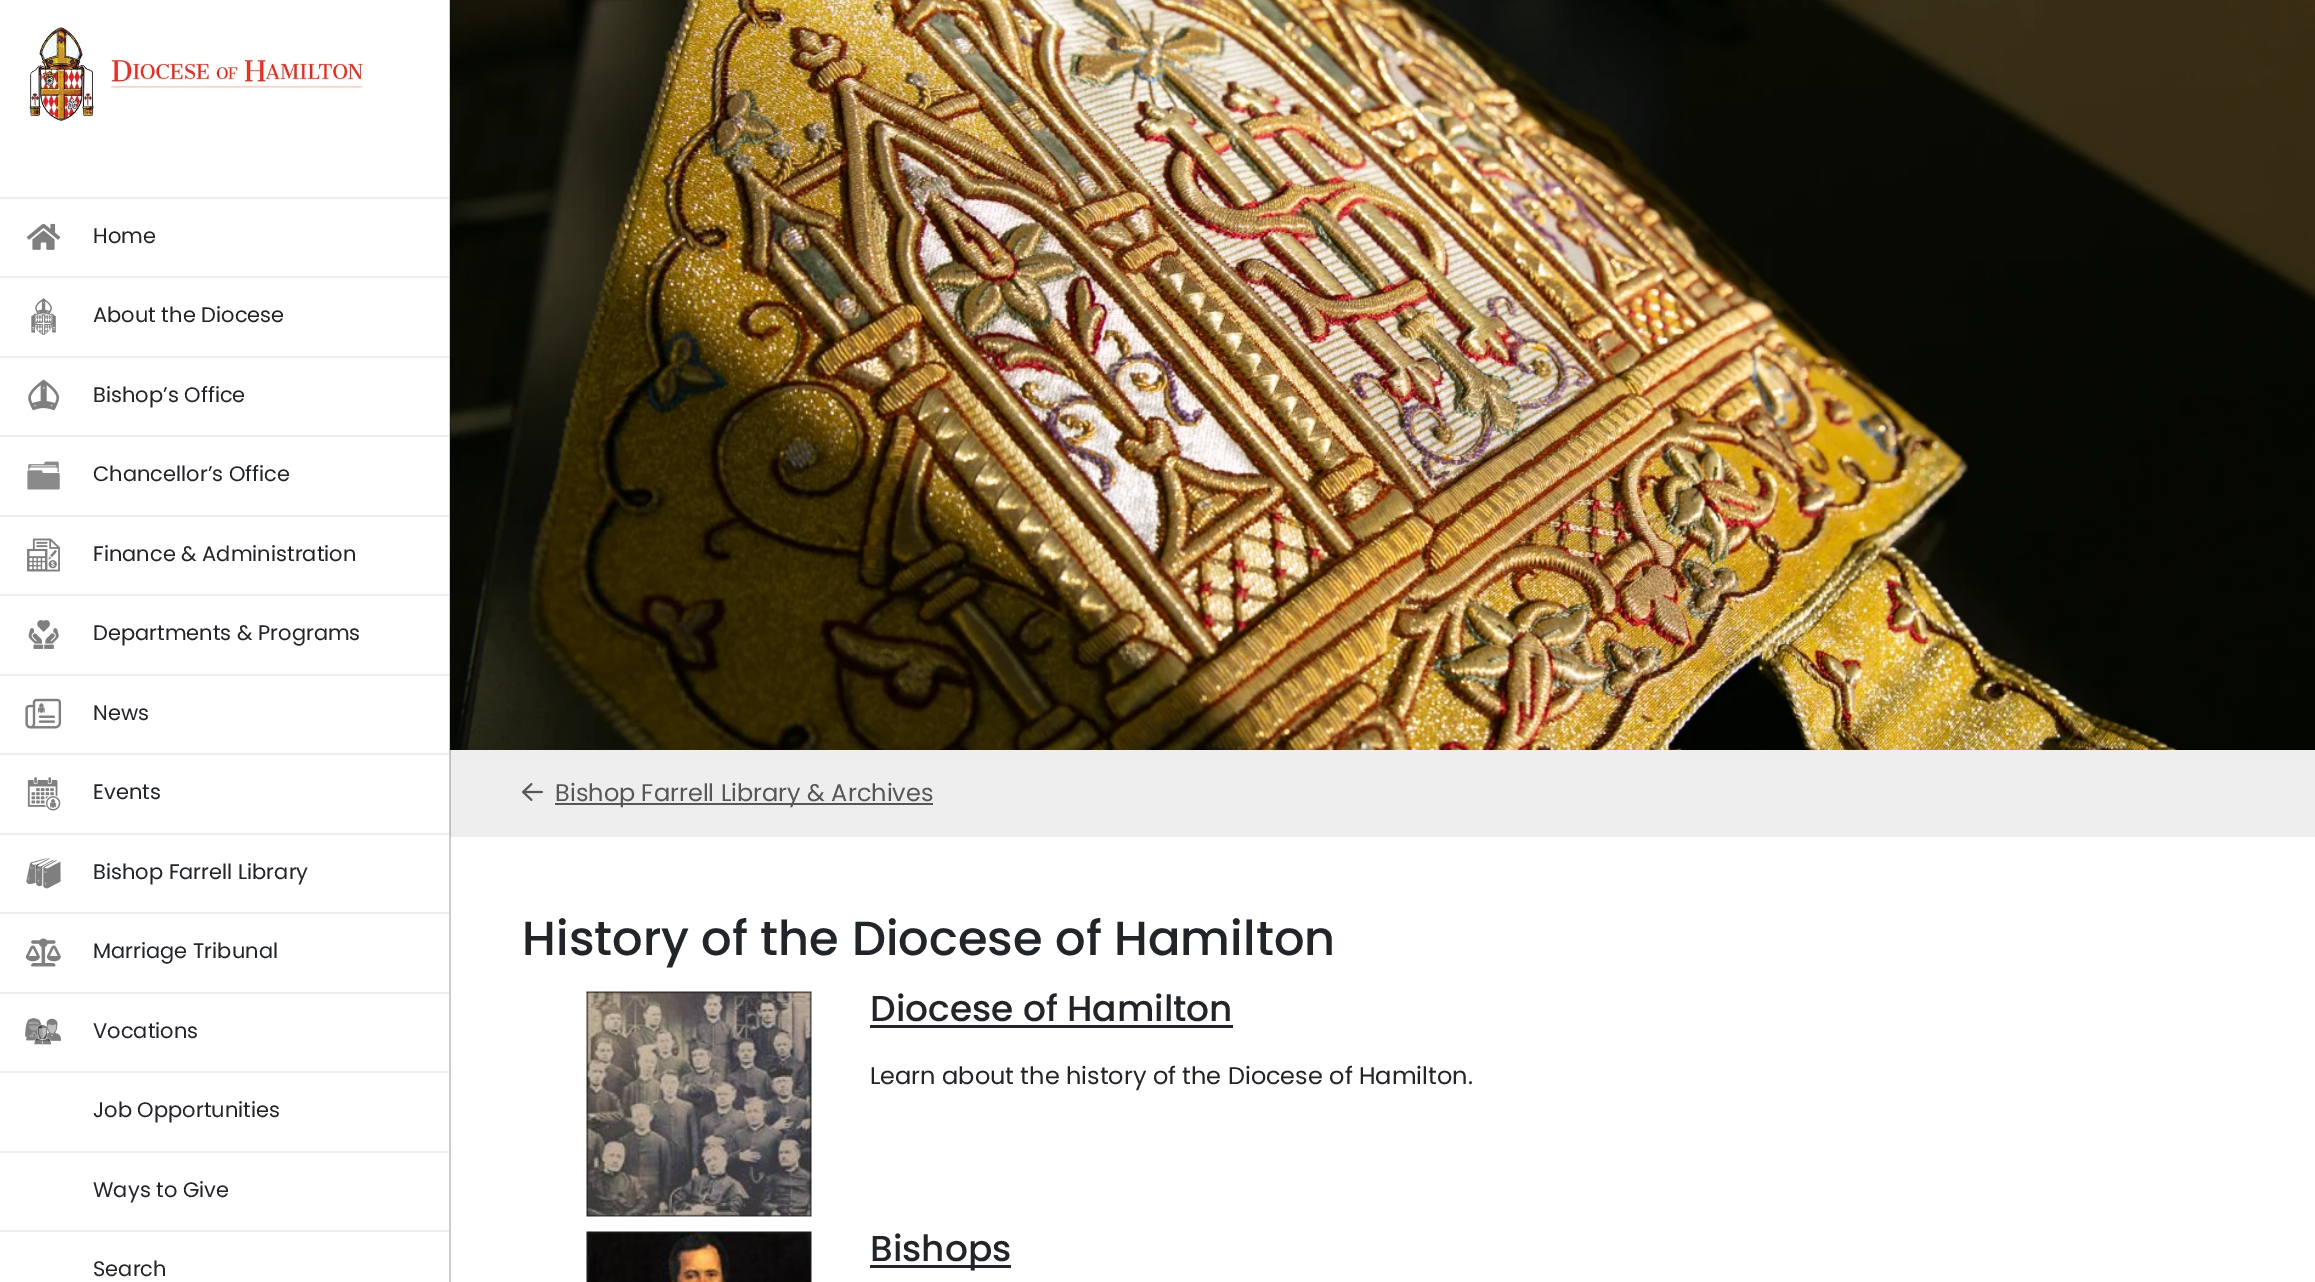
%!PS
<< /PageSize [2315 1282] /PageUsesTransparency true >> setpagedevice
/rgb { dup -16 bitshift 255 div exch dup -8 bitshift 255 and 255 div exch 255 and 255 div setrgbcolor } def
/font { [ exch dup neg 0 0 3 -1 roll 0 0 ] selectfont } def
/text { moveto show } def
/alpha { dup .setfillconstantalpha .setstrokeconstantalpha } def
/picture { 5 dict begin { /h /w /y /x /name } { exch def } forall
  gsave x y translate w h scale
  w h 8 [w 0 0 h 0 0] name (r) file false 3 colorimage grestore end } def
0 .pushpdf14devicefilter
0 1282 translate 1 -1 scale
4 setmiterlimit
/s1 { /Poppins-Regular 21 font 16#212529 rgb } def
/s2 { /Poppins-Regular 24 font 16#575757 rgb } def
/s3 { /Poppins-Medium 48 font 16#212529 rgb } def
/s4 { /Poppins-Medium 36 font 16#212529 rgb } def
/s5 { /Poppins-Regular 24 font 16#212529 rgb } def
16#FFFFFF rgb
0 0 2315 1282 rectfill
(pic13.raw) 450 0 1865 750 picture
16#EEEEEE rgb
450 750 1865 87 rectfill
0.2 alpha
16#000000 rgb
449 0 2 1282 rectfill
1 alpha
16#EEEEEE rgb
0 197 449 2 rectfill
(pic1.raw) 29 27 334 95 picture
0 276 449 2 rectfill
(pic2.raw) 26 223 35 27 picture
s1
(Home) 93 243 text
16#EEEEEE rgb
0 356 449 2 rectfill
(pic3.raw) 31 298 25 37 picture
s1
(About the Diocese) 93 322 text
16#EEEEEE rgb
0 435 449 2 rectfill
(pic4.raw) 28 379 31 32 picture
s1
(Bishop’s Office) 93 402 text
16#EEEEEE rgb
0 515 449 2 rectfill
(pic5.raw) 27 461 33 29 picture
s1
(Chancellor’s Office) 93 481 text
16#EEEEEE rgb
0 594 449 2 rectfill
(pic6.raw) 27 538 33 34 picture
s1
(Finance & Administration) 93 561 text
16#EEEEEE rgb
0 674 449 2 rectfill
(pic7.raw) 28 620 31 29 picture
s1
(Departments & Programs) 93 640 text
16#EEEEEE rgb
0 753 449 2 rectfill
(pic8.raw) 25 698 37 31 picture
s1
(News) 93 720 text
16#EEEEEE rgb
0 833 449 2 rectfill
(pic9.raw) 27 777 34 34 picture
s1
(Events) 93 799 text
16#EEEEEE rgb
0 912 449 2 rectfill
(pic10.raw) 26 857 35 32 picture
s1
(Bishop Farrell Library) 93 879 text
16#EEEEEE rgb
0 992 449 2 rectfill
(pic11.raw) 25 938 36 29 picture
s1
(Marriage Tribunal) 93 958 text
16#EEEEEE rgb
0 1071 449 2 rectfill
(pic12.raw) 25 1018 37 27 picture
s1
(Vocations) 93 1038 text
16#EEEEEE rgb
0 1151 449 2 rectfill
s1
(Job Opportunities) 93 1117 text
16#EEEEEE rgb
0 1230 449 2 rectfill
s1
(Ways to Give) 93 1197 text
(Search) 93 1276 text
(pic14.raw) 522 783 21 18 picture
16#575757 rgb
555 803 378 2 rectfill
s2
(Bishop Farrell Library & Archives) 555 801 text
s3
(History of the Diocese of Hamilton) 522 955 text
(pic15.raw) 586 991 226 226 picture
s4
(Diocese of Hamilton) 870 1021 text
870 1025 363 3 rectfill
s5
(Learn about the history of the Diocese of Hamilton.) 870 1084 text
(pic16.raw) 586 1231 226 51 picture
870 1265 141 3 rectfill
s4
(Bishops) 870 1261 text
.poppdf14devicefilter showpage
